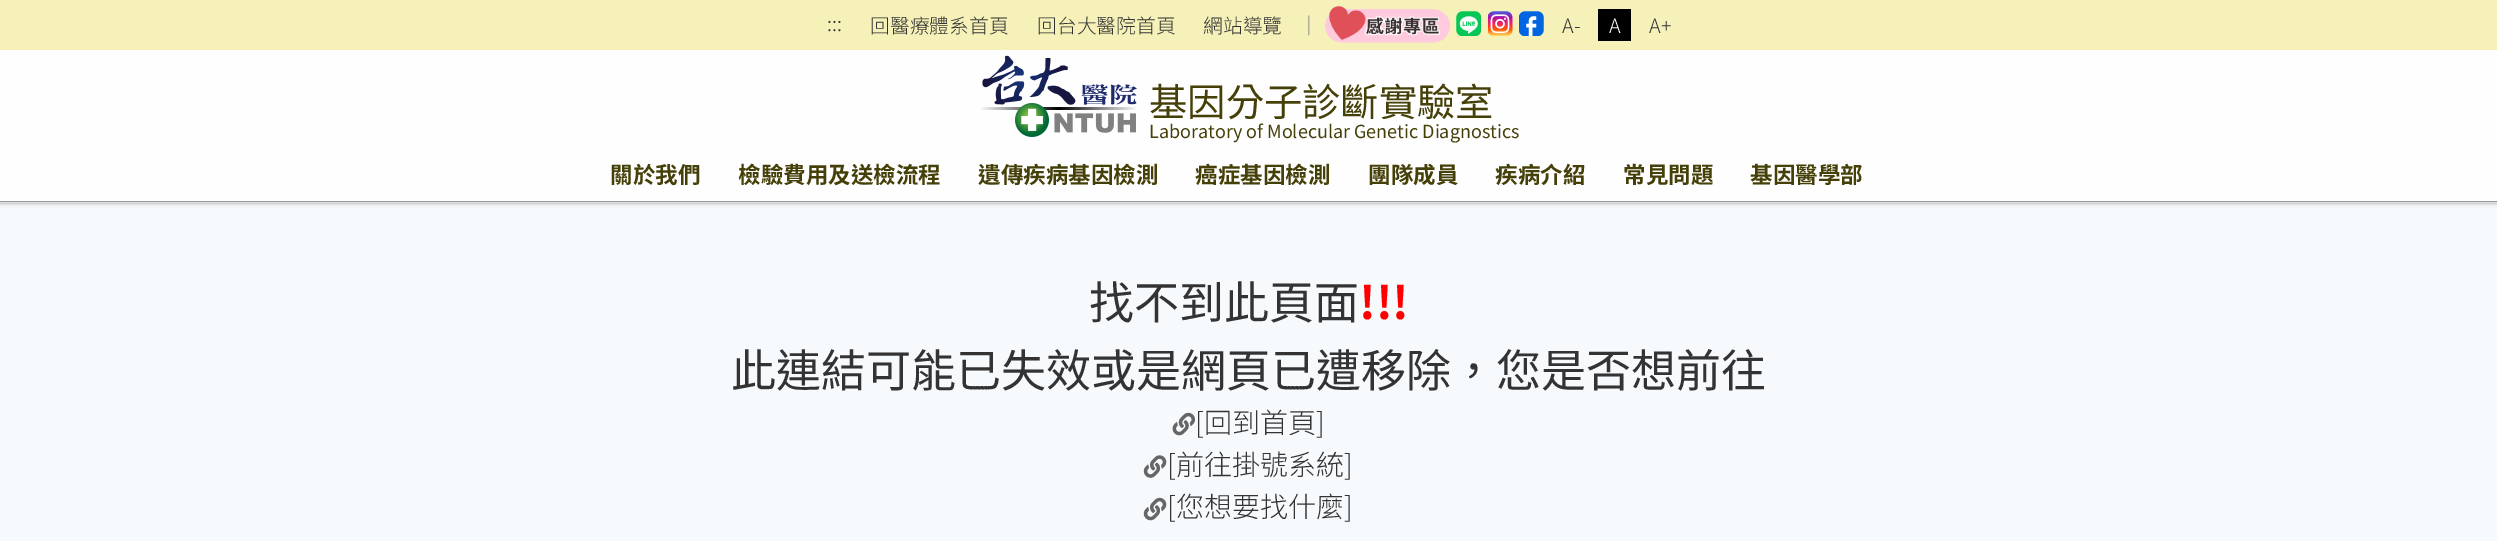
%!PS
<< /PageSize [2497 541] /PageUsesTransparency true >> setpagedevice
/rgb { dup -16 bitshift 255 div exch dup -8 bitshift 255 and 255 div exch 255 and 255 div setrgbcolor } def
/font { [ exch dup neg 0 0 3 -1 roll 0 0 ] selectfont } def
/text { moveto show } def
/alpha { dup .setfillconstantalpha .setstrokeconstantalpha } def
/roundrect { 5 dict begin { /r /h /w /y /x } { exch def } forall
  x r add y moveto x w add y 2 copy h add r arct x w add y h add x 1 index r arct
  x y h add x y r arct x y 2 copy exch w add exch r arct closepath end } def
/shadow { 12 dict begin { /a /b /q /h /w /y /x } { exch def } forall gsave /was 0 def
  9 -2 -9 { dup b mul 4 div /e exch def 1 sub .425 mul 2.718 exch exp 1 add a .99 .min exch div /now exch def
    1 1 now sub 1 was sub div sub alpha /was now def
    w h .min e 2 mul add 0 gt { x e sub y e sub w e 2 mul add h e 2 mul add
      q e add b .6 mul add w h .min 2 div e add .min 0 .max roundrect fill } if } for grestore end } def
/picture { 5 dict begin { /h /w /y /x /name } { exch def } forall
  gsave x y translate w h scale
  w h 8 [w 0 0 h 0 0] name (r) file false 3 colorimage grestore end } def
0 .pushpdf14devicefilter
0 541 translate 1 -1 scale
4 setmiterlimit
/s1 { /NotoSansTC-Light 19.75 font 16#333333 rgb } def
/s2 { /NotoSansTC-Light 19.75 font 16#757575 rgb } def
/s3 { /NotoSansTC-Light 19.75 font 16#FFFFFF rgb } def
/s4 { /NotoSansTC-Regular 38.25 font 16#453F08 rgb } def
/s5 { /NotoSansTC-Regular 18 font 16#453F08 rgb } def
/s6 { /NotoSansTC-Bold 22.5 font 16#453F08 rgb } def
/s7 { /NotoSansTC-Regular 45 font 16#333333 rgb } def
/s8 { /NotoSansTC-Bold 45 font 16#FF0000 rgb } def
/s9 { /NotoSansTC-Light 28 font 16#333333 rgb } def
16#F7FAFC rgb
0 0 2497 541 rectfill
gsave
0 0 moveto 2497 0 lineto 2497 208 lineto 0 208 lineto closepath 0 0 moveto 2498 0 lineto 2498 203 lineto 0 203 lineto closepath eoclip newpath
16#000000 rgb
0 1 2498 203 0 1 0.06 shadow
grestore
gsave
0 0 moveto 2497 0 lineto 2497 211 lineto 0 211 lineto closepath 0 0 moveto 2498 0 lineto 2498 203 lineto 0 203 lineto closepath eoclip newpath
16#000000 rgb
0 1 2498 203 0 2 0.1 shadow
grestore
16#000000 rgb
0 51 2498 152 0 1 0.06 shadow
0 51 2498 152 0 2 0.1 shadow
0.85 alpha
16#F6EFAC rgb
0 0 2497 50 rectfill
1 alpha
s1
(:::) 827 31 text
(回醫療體系首頁) 870 33 text
(回台大醫院首頁) 1037 33 text
(網站導覽) 1203 33 text
s2
(｜) 1299 33 text
(pic1.raw) 1325 6 125 37 picture
(pic2.raw) 1456 11 25 25 picture
(pic3.raw) 1488 11 25 25 picture
(pic4.raw) 1519 11 25 25 picture
s1
(A-) 1562 33 text
16#000000 rgb
1598 9 33 32 rectfill
s3
(A) 1609 33 text
s1
(A+) 1649 33 text
16#FEFEFF rgb
0 50 2497 151 rectfill
(pic5.raw) 981 55 156 82 picture
s4
(基因分子診斷實驗室) 1149 116 text
s5
(Laboratory of Molecular Genetic Diagnostics) 1149 138 text
s6
(關於我們) 610 183 text
(檢驗費用及送檢流程) 738 183 text
(遺傳疾病基因檢測) 978 183 text
(癌症基因檢測) 1195 183 text
(團隊成員) 1368 183 text
(疾病介紹) 1495 183 text
(常見問題) 1623 183 text
(基因醫學部) 1750 183 text
0.3 alpha
16#000000 rgb
0 201 2497 1 rectfill
1 alpha
s7
(找不到此頁面) 1089 319 text
s8
(!!!) 1359 319 text
s7
(此連結可能已失效或是網頁已遭移除，您是否想前往) 731 387 text
(pic6.raw) 1172 412 23 24 picture
s9
([回到首頁]) 1195 433 text
(pic7.raw) 1143 455 24 23 picture
([前往掛號系統]) 1167 475 text
(pic8.raw) 1143 497 24 24 picture
([您想要找什麼]) 1167 517 text
.poppdf14devicefilter showpage
